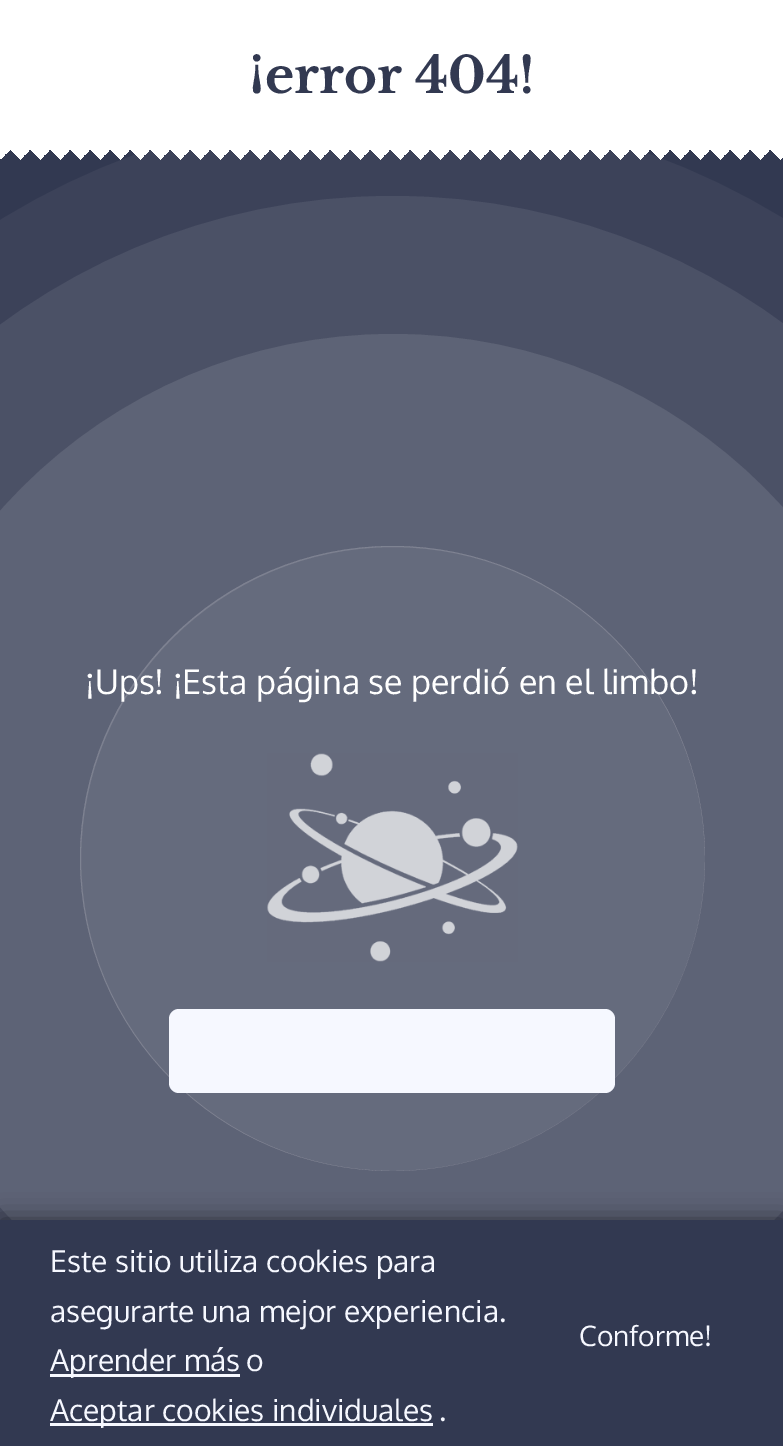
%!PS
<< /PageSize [783 1446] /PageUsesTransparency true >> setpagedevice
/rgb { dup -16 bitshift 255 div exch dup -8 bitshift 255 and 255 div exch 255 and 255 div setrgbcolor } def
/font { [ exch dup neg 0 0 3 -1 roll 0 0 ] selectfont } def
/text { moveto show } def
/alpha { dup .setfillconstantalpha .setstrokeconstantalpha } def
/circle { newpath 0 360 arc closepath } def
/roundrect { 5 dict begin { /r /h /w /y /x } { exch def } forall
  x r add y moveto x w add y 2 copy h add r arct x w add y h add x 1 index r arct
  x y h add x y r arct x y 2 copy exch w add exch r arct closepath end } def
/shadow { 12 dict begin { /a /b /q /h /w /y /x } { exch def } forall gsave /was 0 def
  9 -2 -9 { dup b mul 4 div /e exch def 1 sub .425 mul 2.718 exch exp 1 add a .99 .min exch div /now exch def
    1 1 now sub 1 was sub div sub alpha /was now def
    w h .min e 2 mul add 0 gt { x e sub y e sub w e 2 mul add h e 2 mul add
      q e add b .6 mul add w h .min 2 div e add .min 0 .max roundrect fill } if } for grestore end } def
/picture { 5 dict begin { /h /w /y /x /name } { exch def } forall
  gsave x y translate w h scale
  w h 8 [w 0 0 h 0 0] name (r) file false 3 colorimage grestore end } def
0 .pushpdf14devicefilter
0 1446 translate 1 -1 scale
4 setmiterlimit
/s1 { /LibreBaskerville-Bold 50 font 16#323951 rgb } def
/s2 { /Oxygen-Regular 34 font 16#FFFFFF rgb } def
/s3 { /Oxygen-Regular 30 font 16#F6F8FF rgb } def
/s4 { /Oxygen-Regular 28 font 16#F6F8FF rgb } def
16#323951 rgb
0 0 783 1446 rectfill
16#3C4259 rgb
438 setlinewidth
393 859 531 circle stroke
16#FFFFFF rgb
0 0 783 150 rectfill
s1
(¡error 404!) 249 93 text
(pic1.raw) 11 150 769 9 picture
(pic2.raw) 0 150 783 10 picture
0.08 alpha
16#FFFFFF rgb
350 setlinewidth
392.5 858.5 487.5 circle stroke
0.1 alpha
213 setlinewidth
393 859 418.5 circle stroke
0.25 alpha
392.5 858.5 312.5 circle fill
1 alpha
(pic3.raw) 267 753 251 209 picture
s2
(¡Ups! ¡Esta página se perdió en el limbo!) 85 694 text
16#F6F8FF rgb
169 1009 446 84 10 roundrect fill
16#000000 rgb
0 1220 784 226 0 12.5 0.5 shadow
16#323951 rgb
0 1220 783 226 rectfill
s3
(Este sitio utiliza cookies para) 50 1272 text
(asegurarte una mejor experiencia.) 50 1322 text
50 1374 190 3 rectfill
(Aprender más) 50 1371 text
(o) 246 1371 text
50 1423 383 3 rectfill
(Aceptar cookies individuales) 50 1421 text
(.) 439 1421 text
s4
(Conforme!) 579 1346 text
.poppdf14devicefilter showpage
